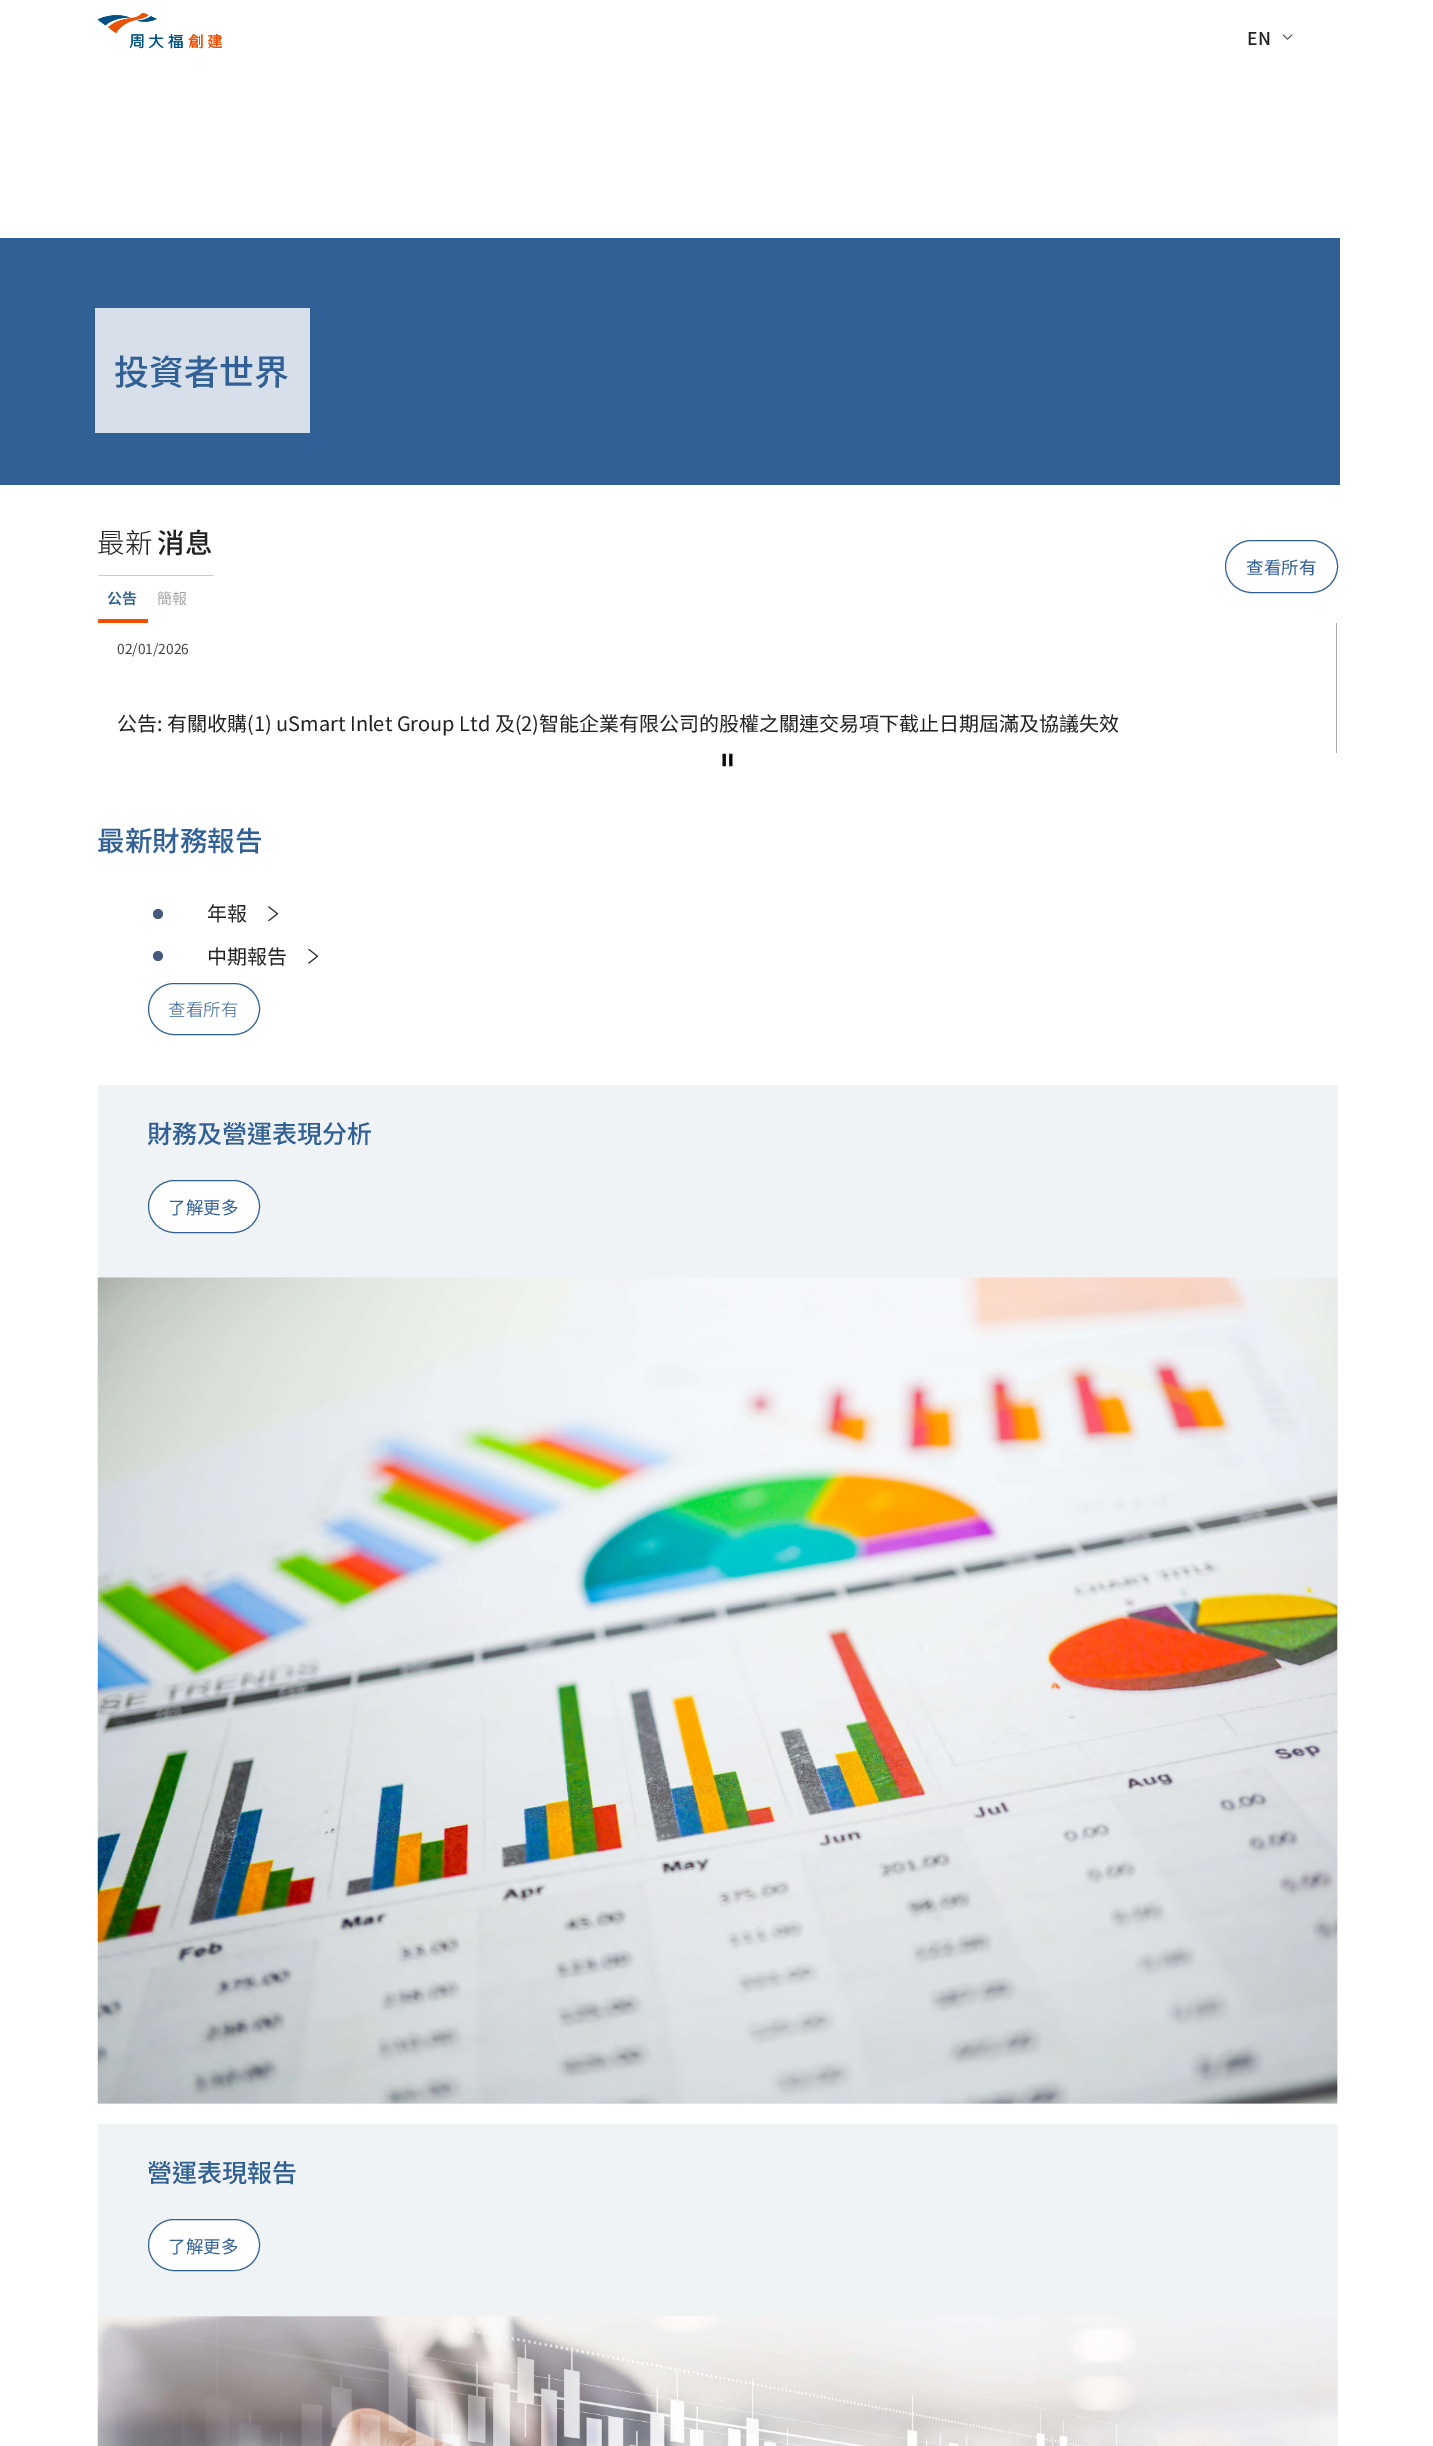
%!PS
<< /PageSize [1433 2446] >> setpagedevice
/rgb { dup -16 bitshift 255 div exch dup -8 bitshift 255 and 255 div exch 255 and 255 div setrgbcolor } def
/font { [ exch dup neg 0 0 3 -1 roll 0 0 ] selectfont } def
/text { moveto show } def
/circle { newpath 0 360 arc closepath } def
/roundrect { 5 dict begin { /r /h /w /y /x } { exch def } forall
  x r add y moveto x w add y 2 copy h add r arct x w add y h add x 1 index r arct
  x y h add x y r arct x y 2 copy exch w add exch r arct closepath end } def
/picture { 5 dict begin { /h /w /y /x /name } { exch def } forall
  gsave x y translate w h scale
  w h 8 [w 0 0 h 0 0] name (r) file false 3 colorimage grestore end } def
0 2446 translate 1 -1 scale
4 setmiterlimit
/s1 { /NotoSansHK-Medium 17.5 font 16#222222 rgb } def
/s2 { /NotoSansHK-Medium 35 font 16#306095 rgb } def
/s3 { /NotoSansHK-Light 27.5 font 16#222222 rgb } def
/s4 { /NotoSansHK-Medium 27.5 font 16#222222 rgb } def
/s5 { /NotoSansHK-Regular 17.5 font 16#306095 rgb } def
/s6 { /NotoSansHK-SemiBold 15 font 16#306095 rgb } def
/s7 { /NotoSansHK-Regular 15 font 16#A7A7A7 rgb } def
/s8 { /NotoSansHK-Regular 13.75 font 16#444444 rgb } def
/s9 { /NotoSansHK-Regular 20 font 16#222222 rgb } def
/s10 { /NotoSansHK-Medium 27.5 font 16#306095 rgb } def
/s11 { /NotoSansHK-Light 17.5 font 16#306095 rgb } def
/s12 { /NotoSansHK-Medium 25 font 16#306095 rgb } def
16#FFFFFF rgb
0 0 1433 2446 rectfill
(pic1.raw) 98 13 125 36 picture
(pic2.raw) 98 13 125 36 picture
s1
(EN) 1247 45 text
(pic3.raw) 1283 34 10 6 picture
16#306095 rgb
0 238 1340 247 rectfill
16#D6DFEA rgb
95 308 215 125 rectfill
s2
(投資者世界) 114 385 text
s3
(最新) 97 553 text
s4
(消息) 157 553 text
16#CCCCCC rgb
98 575 115 1 rectfill
16#306095 rgb
1225.5 540.5 112 52 26 roundrect stroke
s5
(查看所有) 1246 574 text
16#FC5000 rgb
98 619 50 4 rectfill
s6
(公告) 107 604 text
s7
(簡報) 157 604 text
16#AAAAAA rgb
1336 623 1 130 rectfill
s8
(02/01/2026) 117 654 text
s9
(公告: 有關收購\(1\) uSmart Inlet Group Ltd 及\(2\)智能企業有限公司的股權之關連交易項下截止日期屆滿及協議失效) 117 731 text
(pic4.raw) 722 753 11 14 picture
s10
(最新財務報告) 97 851 text
16#465A80 rgb
158 914 5 circle fill
s9
(年報) 207 921 text
(pic5.raw) 268 906 11 15 picture
16#465A80 rgb
158 956 5 circle fill
s9
(中期報告) 207 964 text
(pic6.raw) 308 949 11 15 picture
16#306095 rgb
148.5 983.5 111 51 25.5 roundrect stroke
s11
(查看所有) 168 1016 text
16#F0F3F5 rgb
98 1085 1240 1019 rectfill
s12
(財務及營運表現分析) 147 1143 text
16#FFFFFF rgb
148.5 1180.5 111 52 26 roundrect gsave fill grestore
16#306095 rgb
stroke
s5
(了解更多) 168 1214 text
(pic7.raw) 97 1277 1241 827 picture
16#F0F3F5 rgb
98 2124 1240 322 rectfill
s12
(營運表現報告) 147 2182 text
16#FFFFFF rgb
148.5 2219.5 111 51 25.5 roundrect gsave fill grestore
16#306095 rgb
stroke
s5
(了解更多) 168 2253 text
(pic8.raw) 97 2316 1241 130 picture
showpage
